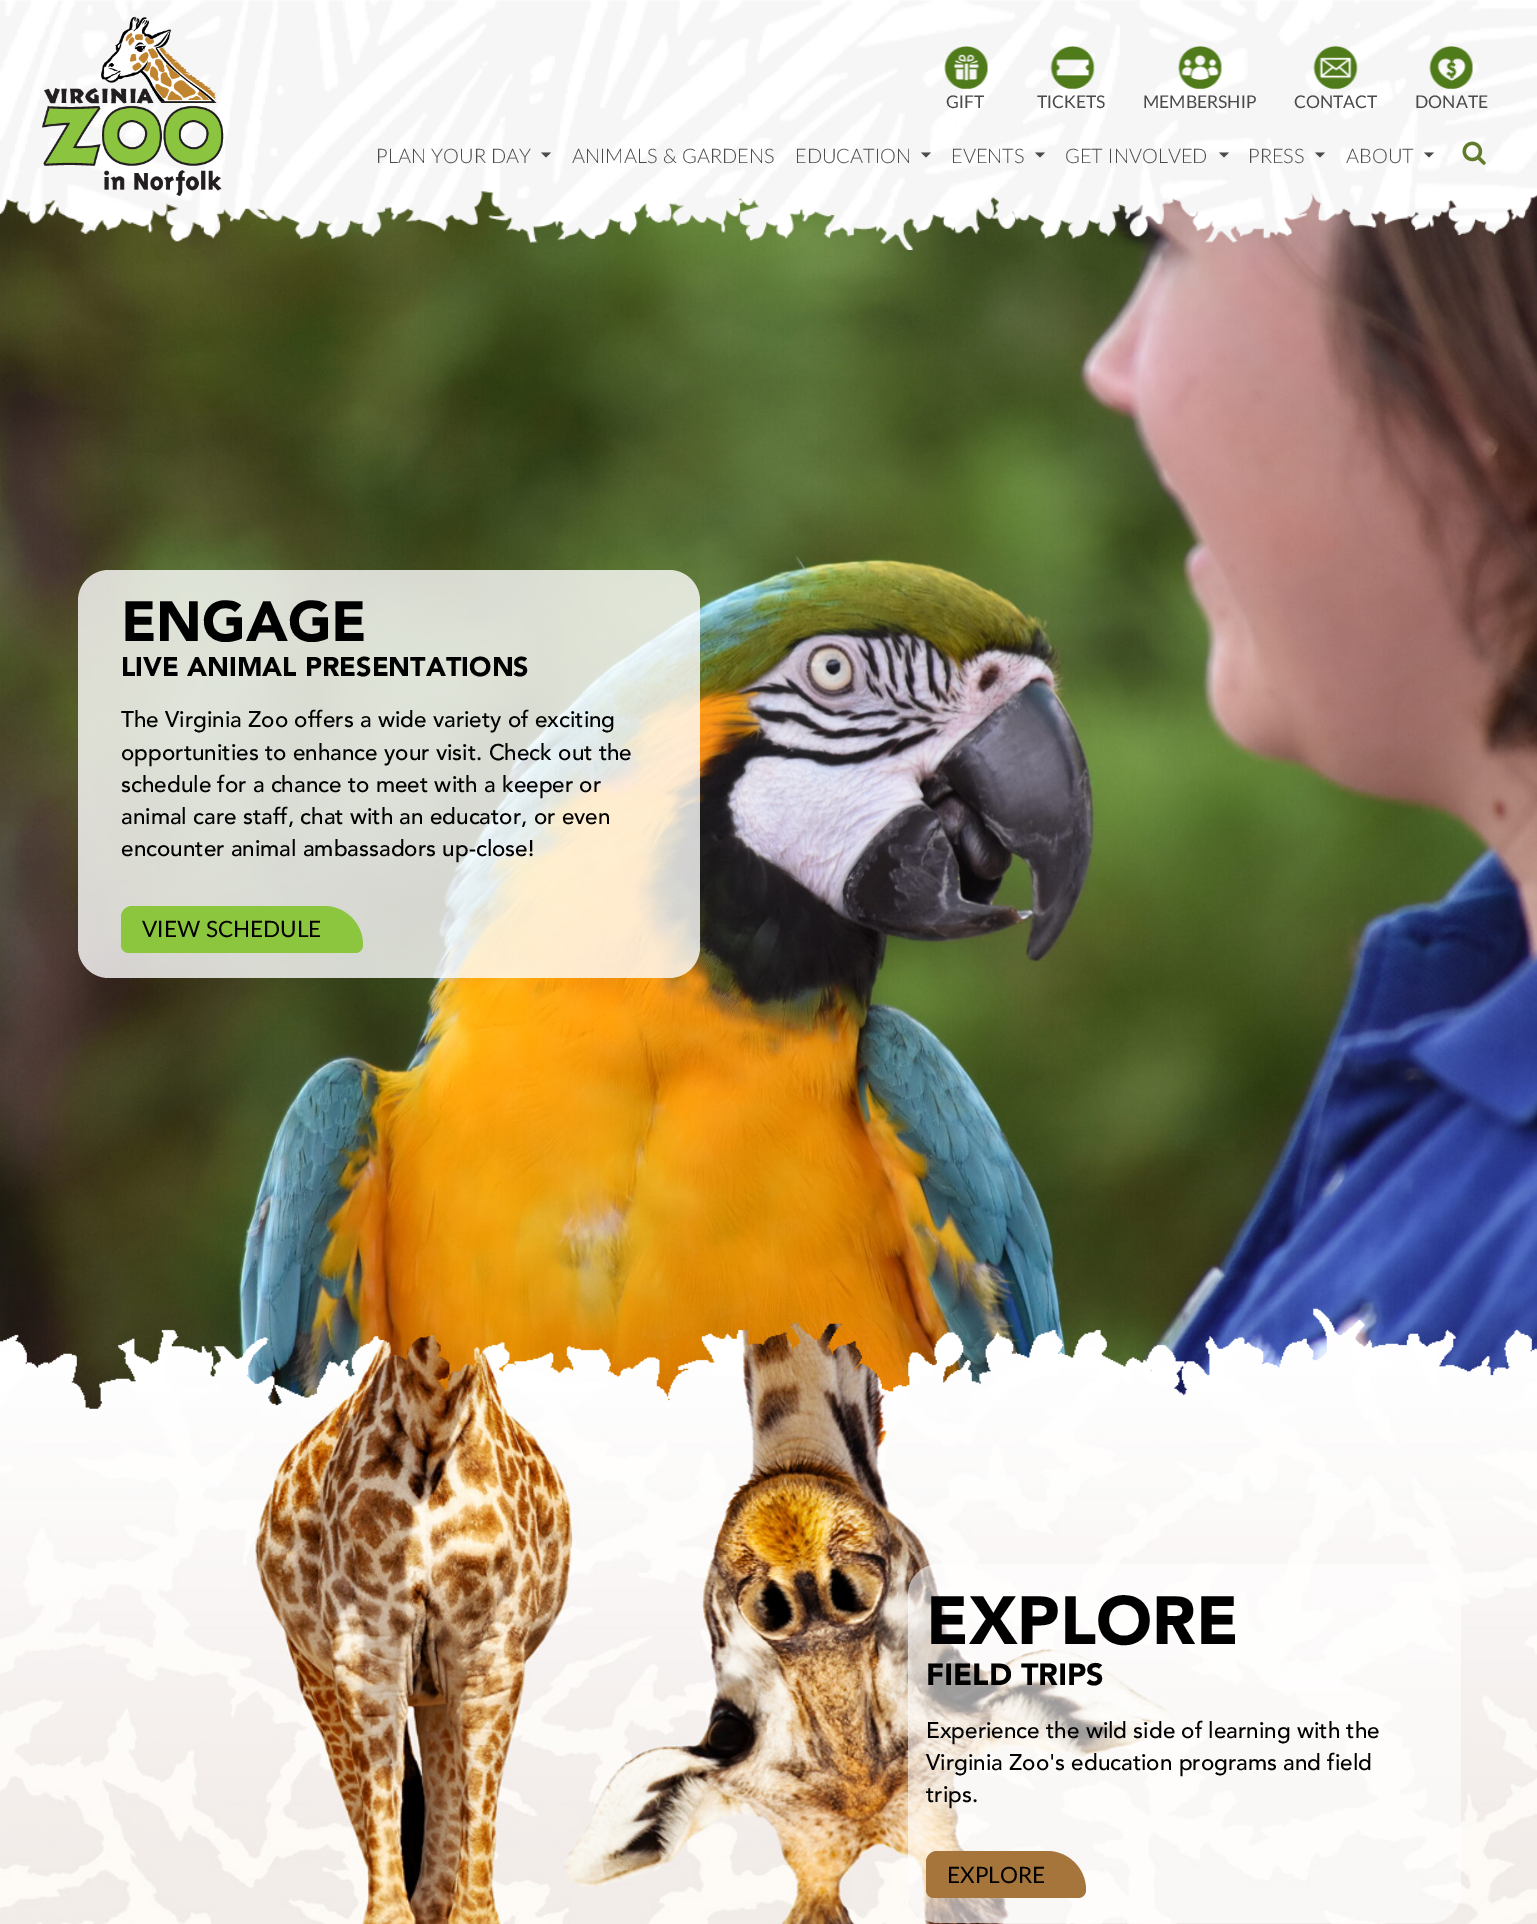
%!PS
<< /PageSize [1537 1924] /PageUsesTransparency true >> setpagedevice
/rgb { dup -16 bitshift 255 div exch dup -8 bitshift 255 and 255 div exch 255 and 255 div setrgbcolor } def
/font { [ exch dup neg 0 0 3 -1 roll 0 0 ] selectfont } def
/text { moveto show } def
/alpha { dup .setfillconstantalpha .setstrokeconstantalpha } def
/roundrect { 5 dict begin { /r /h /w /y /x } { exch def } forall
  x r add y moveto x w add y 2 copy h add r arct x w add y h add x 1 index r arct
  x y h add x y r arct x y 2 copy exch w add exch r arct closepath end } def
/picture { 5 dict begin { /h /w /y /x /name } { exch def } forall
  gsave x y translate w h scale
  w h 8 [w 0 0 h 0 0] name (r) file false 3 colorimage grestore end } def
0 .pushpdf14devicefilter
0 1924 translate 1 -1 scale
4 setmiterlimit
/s1 { /Lato-Regular 17.5 font 16#4A4A4A rgb } def
/s2 { /Lato-Light 20 font 16#4A4A4A rgb } def
/s3 { /Avenir-Black 56.25 font 16#000000 rgb } def
/s4 { /Avenir-Black 26.9 font 16#000000 rgb } def
/s5 { /Avenir-Medium 22.5 font 16#000000 rgb } def
/s6 { /Lato-Regular 22.5 font 16#000000 rgb } def
/s7 { /Avenir-Black 67.5 font 16#000000 rgb } def
/s8 { /Avenir-Black 30.5 font 16#000000 rgb } def
16#FFFFFF rgb
0 0 1537 1924 rectfill
(pic9.raw) 0 191 1537 1218 picture
(pic1.raw) 0 0 1537 250 picture
(pic2.raw) 944 46 44 43 picture
s1
(GIFT) 946 108 text
(pic3.raw) 1050 46 45 43 picture
(TICKETS) 1037 108 text
(pic4.raw) 1178 46 44 43 picture
(MEMBERSHIP) 1143 108 text
(pic5.raw) 1313 45 45 44 picture
(CONTACT) 1294 108 text
(pic6.raw) 1429 46 44 43 picture
(DONATE) 1415 108 text
(pic7.raw) 42 16 182 181 picture
s2
(PLAN YOUR DAY) 376 163 text
541 152.5 moveto 551 152.5 lineto 546 157.5 lineto closepath fill
(ANIMALS & GARDENS) 572 163 text
(EDUCATION) 795 163 text
921 152.5 moveto 931 152.5 lineto 926 157.5 lineto closepath fill
(EVENTS) 951 163 text
1035 152.5 moveto 1045 152.5 lineto 1040 157.5 lineto closepath fill
(GET INVOLVED) 1065 163 text
1219 152.5 moveto 1229 152.5 lineto 1224 157.5 lineto closepath fill
(PRESS) 1248 163 text
1315 152.5 moveto 1325 152.5 lineto 1320 157.5 lineto closepath fill
(ABOUT) 1346 163 text
1424 152.5 moveto 1434 152.5 lineto 1429 157.5 lineto closepath fill
(pic8.raw) 1462 141 24 24 picture
0.8 alpha
16#FFFFFF rgb
78 570 622 408 31 roundrect fill
1 alpha
s3
(ENGAGE) 121 641 text
s4
(LIVE ANIMAL PRESENTATIONS) 121 676 text
s5
(The Virginia Zoo offers a wide variety of exciting) 121 727 text
(opportunities to enhance your visit. Check out the) 121 760 text
(schedule for a chance to meet with a keeper or) 121 792 text
(animal care staff, chat with an educator, or even) 121 824 text
(encounter animal ambassadors up-close!) 121 856 text
16#8CC63F rgb
132 906 moveto 324 906 lineto 345.5 906 363 923.5 363 945 curveto 363 949.5 359.5 953 355 953 curveto 129 953 lineto 124.5 953 121 949.5 121 945 curveto 121 917 lineto 121 911 126 906 132 906 curveto closepath fill
s6
(VIEW SCHEDULE) 142 937 text
(pic10.raw) 0 1308 1537 616 picture
0.6 alpha
16#FFFFFF rgb
908 1564 553 359 31 roundrect fill
1 alpha
s7
(EXPLORE) 926 1644 text
s8
(FIELD TRIPS) 926 1685 text
s5
(Experience the wild side of learning with the) 926 1738 text
(Virginia Zoo's education programs and field) 926 1770 text
(trips.) 926 1802 text
16#A6753C rgb
937 1851 moveto 1047 1851 lineto 1068.5 1851 1086 1868.5 1086 1890 curveto 1086 1894.5 1082.5 1898 1078 1898 curveto 934 1898 lineto 929.5 1898 926 1894.5 926 1890 curveto 926 1862 lineto 926 1856 931 1851 937 1851 curveto closepath fill
s6
(EXPLORE) 947 1883 text
.poppdf14devicefilter showpage
